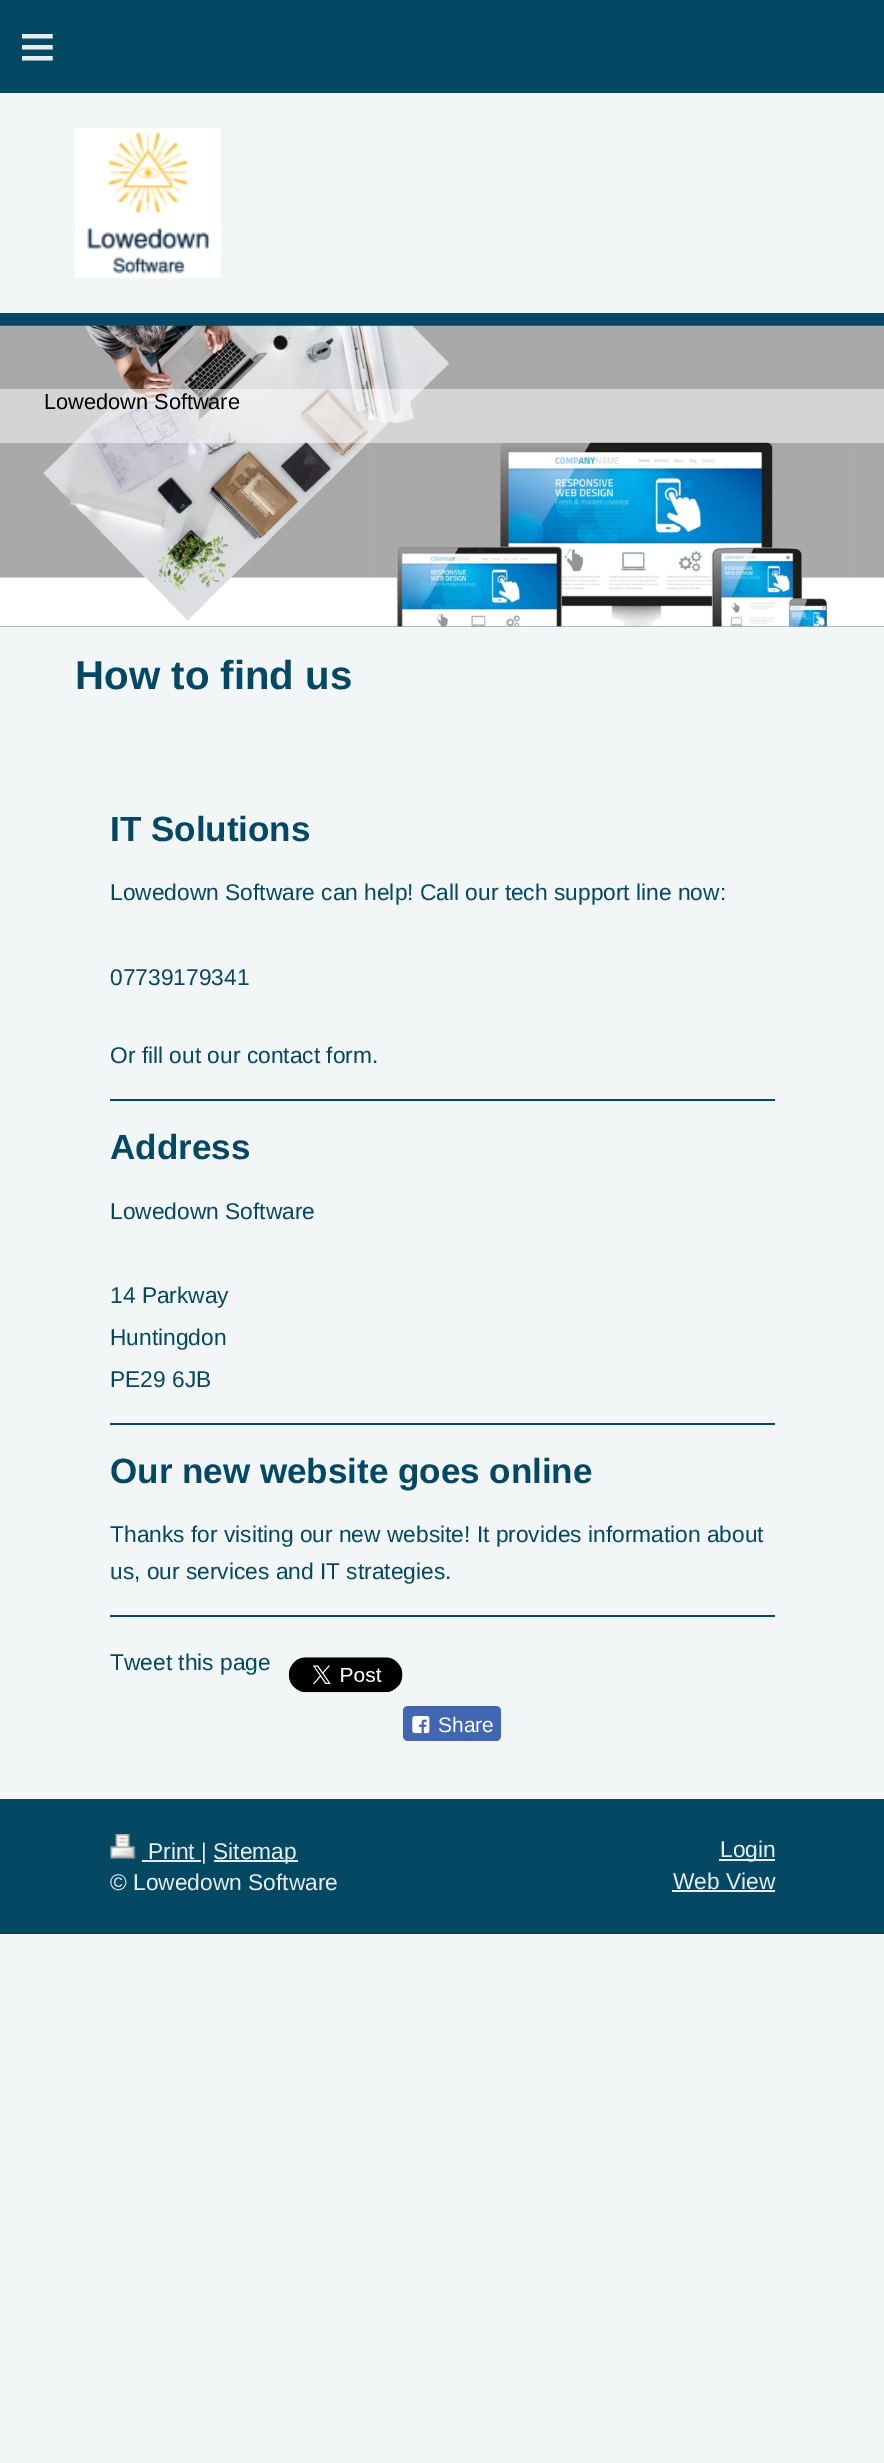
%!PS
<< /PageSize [884 2463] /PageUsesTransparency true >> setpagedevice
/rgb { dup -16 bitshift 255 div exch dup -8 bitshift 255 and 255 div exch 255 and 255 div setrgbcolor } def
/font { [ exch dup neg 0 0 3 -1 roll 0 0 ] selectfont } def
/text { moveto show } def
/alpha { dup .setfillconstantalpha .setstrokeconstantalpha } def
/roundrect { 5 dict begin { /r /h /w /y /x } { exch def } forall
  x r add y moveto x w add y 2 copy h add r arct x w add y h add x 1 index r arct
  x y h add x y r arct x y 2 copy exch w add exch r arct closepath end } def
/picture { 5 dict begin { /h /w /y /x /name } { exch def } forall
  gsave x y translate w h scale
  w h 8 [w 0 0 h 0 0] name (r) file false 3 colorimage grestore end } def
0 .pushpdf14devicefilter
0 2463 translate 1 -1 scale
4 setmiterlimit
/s1 { /LiberationSans-Regular 21.75 font 16#000000 rgb } def
/s2 { /LiberationSans-Bold 40.25 font 16#054863 rgb } def
/s3 { /LiberationSans-Bold 35 font 16#054863 rgb } def
/s4 { /LiberationSans-Regular 22.75 font 16#054863 rgb } def
/s5 { /LiberationSans-Regular 21 font 16#FFFFFF rgb } def
/s6 { /LiberationSans-Regular 22.75 font 16#E6EDEF rgb } def
16#F2F6F7 rgb
0 0 884 2463 rectfill
16#054863 rgb
0 0 884 93 rectfill
/LiberationSans-Regular 63 font
16#E6EDEF rgb
19 68 moveto 18 0 (≡) ashow
16#054863 rgb
0 313 884 13 rectfill
(pic1.raw) 75 128 146 150 picture
16#A0A0A0 rgb
0 626 884 1 rectfill
(pic2.raw) 0 325 884 302 picture
0.5 alpha
16#FFFFFF rgb
0 389 884 54 rectfill
1 alpha
s1
(Lowedown Software) 44 409 text
s2
(How to find us) 75 689 text
s3
(IT Solutions) 110 841 text
s4
(Lowedown Software can help! Call our tech support line now:) 110 900 text
(07739179341) 110 985 text
(Or fill out our contact form.) 110 1063 text
110 1099 665 2 rectfill
s3
(Address) 110 1159 text
s4
(Lowedown Software) 110 1219 text
(14 Parkway) 110 1303 text
(Huntingdon) 110 1345 text
(PE29 6JB) 110 1387 text
110 1423 665 2 rectfill
s3
(Our new website goes online) 110 1483 text
s4
(Thanks for visiting our new website! It provides information about) 110 1542 text
(us, our services and IT strategies.) 110 1579 text
110 1615 665 2 rectfill
(Tweet this page) 110 1670 text
(pic3.raw) 288 1657 115 36 picture
16#4267B2 rgb
403 1706 98 35 5 roundrect fill
(pic4.raw) 412 1716 18 18 picture
s5
(Share) 438 1732 text
16#054863 rgb
0 1799 884 135 rectfill
(pic5.raw) 110 1834 26 25 picture
16#E6EDEF rgb
142 1860 59 2 rectfill
s6
(Print |) 148 1859 text
214 1860 84 2 rectfill
(Sitemap) 213 1859 text
(© Lowedown Software) 110 1890 text
719 1859 56 2 rectfill
(Login) 720 1857 text
(Web View) 673 1889 text
672 1890 103 2 rectfill
.poppdf14devicefilter showpage
